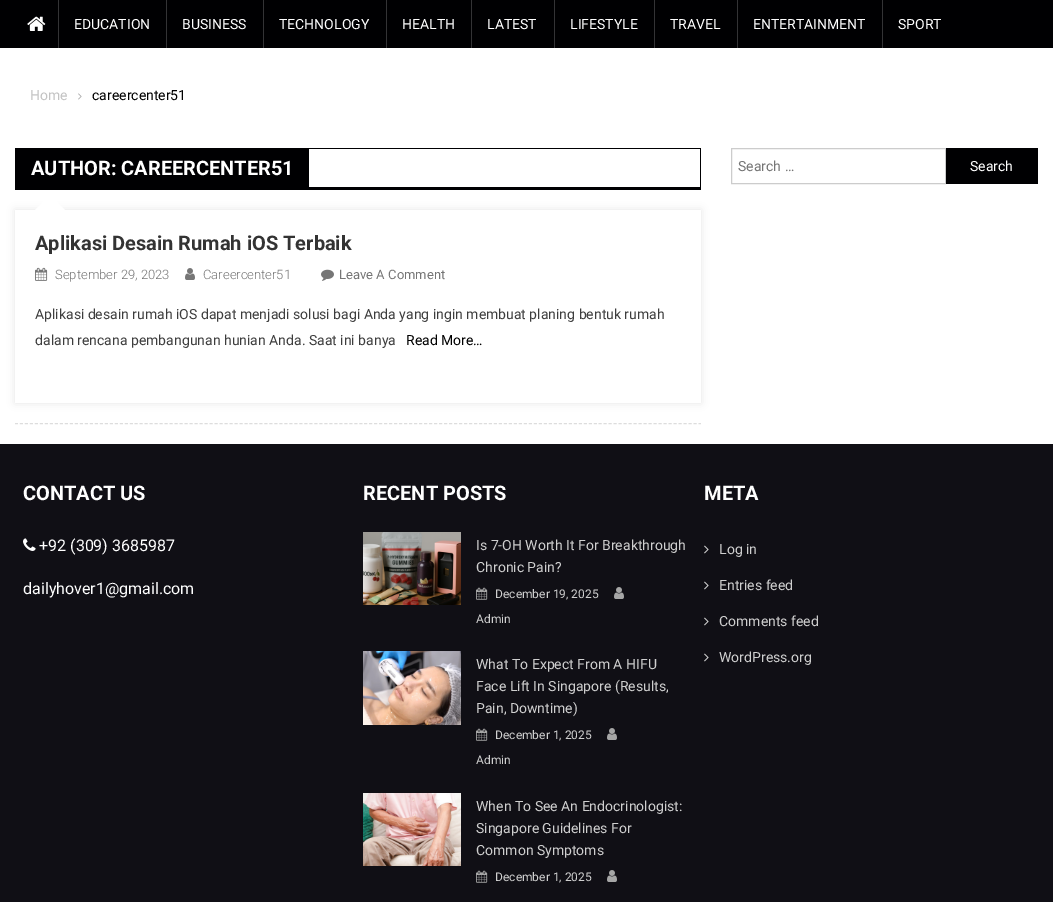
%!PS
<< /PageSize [1053 902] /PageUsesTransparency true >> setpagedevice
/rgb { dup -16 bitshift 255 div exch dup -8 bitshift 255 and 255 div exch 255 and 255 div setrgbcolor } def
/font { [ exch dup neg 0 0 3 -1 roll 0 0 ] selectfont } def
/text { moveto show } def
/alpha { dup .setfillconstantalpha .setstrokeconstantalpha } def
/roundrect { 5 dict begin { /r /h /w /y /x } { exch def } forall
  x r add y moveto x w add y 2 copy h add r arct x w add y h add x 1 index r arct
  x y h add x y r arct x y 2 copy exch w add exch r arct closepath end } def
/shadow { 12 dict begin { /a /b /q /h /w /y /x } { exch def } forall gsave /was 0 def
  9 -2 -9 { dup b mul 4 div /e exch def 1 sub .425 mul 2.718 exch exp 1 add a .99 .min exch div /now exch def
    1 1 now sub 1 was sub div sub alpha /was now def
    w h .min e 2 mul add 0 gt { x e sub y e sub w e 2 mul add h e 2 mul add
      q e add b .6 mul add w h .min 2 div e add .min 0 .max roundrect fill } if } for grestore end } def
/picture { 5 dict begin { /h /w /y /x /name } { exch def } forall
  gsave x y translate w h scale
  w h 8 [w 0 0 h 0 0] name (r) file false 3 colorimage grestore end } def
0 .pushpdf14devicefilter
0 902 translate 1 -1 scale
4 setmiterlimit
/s1 { /Roboto-Regular 14 font 16#FFFFFF rgb } def
/s2 { /Roboto-Regular 14 font 16#C3C3C3 rgb } def
/s3 { /Roboto-Regular 14 font 16#000000 rgb } def
/s4 { /Roboto-Bold 20 font 16#FFFFFF rgb } def
/s5 { /Roboto-Bold 20 font 16#333333 rgb } def
/s6 { /Roboto-Light 13 font 16#757575 rgb } def
/s7 { /Roboto-Regular 13 font 16#757575 rgb } def
/s8 { /Roboto-Regular 14 font 16#3D3D3D rgb } def
/s9 { /Roboto-Regular 14 font 16#757575 rgb } def
/s10 { /Roboto-Regular 16 font 16#FFFFFF rgb } def
/s11 { /Roboto-Regular 14 font 16#CFCFCF rgb } def
/s12 { /Roboto-Regular 12 font 16#CFCFCF rgb } def
16#FFFFFF rgb
0 0 1053 902 rectfill
16#000002 rgb
0 0 1053 48 rectfill
(pic1.raw) 27 16 19 15 picture
16#333335 rgb
58 0 1 48 rectfill
s1
(EDUCATION) 74 29 text
16#333335 rgb
166 0 1 48 rectfill
s1
(BUSINESS) 182 29 text
16#333335 rgb
263 0 1 48 rectfill
s1
(TECHNOLOGY) 279 29 text
16#333335 rgb
386 0 1 48 rectfill
s1
(HEALTH) 402 29 text
16#333335 rgb
471 0 1 48 rectfill
s1
(LATEST) 487 29 text
16#333335 rgb
554 0 1 48 rectfill
s1
(LIFESTYLE) 570 29 text
16#333335 rgb
654 0 1 48 rectfill
s1
(TRAVEL) 670 29 text
16#333335 rgb
737 0 1 48 rectfill
s1
(ENTERTAINMENT) 753 29 text
16#333335 rgb
882 0 1 48 rectfill
s1
(SPORT) 898 29 text
s2
(Home) 30 100 text
(pic2.raw) 78 93 4 7 picture
s3
(careercenter51) 92 100 text
16#000002 rgb
15 148 686 1 rectfill
700 148 1 42 rectfill
15 187 686 3 rectfill
15 148 1 42 rectfill
16 149 293 38 rectfill
s4
(AUTHOR: CAREERCENTER51) 31 175 text
16#DDDDDD rgb
[3 1.99] 0 setdash
15 423.5 moveto 701 423.5 lineto stroke
gsave
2 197 moveto 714 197 lineto 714 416 lineto 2 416 lineto closepath 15 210 moveto 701 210 lineto 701 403 lineto 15 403 lineto closepath eoclip newpath
16#000000 rgb
15 210 686 193 0 4 0.1 shadow
grestore
16#FFFFFF rgb
65 210 moveto 35 210 lineto 50 195 lineto closepath fill
s5
(Aplikasi Desain Rumah iOS Terbaik) 35 250 text
(pic3.raw) 35 267 13 14 picture
s6
(September 29, 2023) 55 279 text
(pic4.raw) 185 268 10 12 picture
(Careercenter51) 203 279 text
(pic5.raw) 321 269 13 12 picture
s7
(Leave A Comment) 339 279 text
s8
(Aplikasi desain rumah iOS dapat menjadi solusi bagi Anda yang ingin membuat planing bentuk rumah) 35 319 text
(dalam rencana pembangunan hunian Anda. Saat ini banya) 35 345 text
s3
(Read More…) 406 345 text
16#CCCCCC rgb
[] 0 setdash
731.5 148.5 214 35 rectstroke
s9
(Search …) 738 171 text
16#000002 rgb
946 148 92 36 rectfill
s1
(Search) 970 171 text
16#100F15 rgb
0 444 1053 458 rectfill
s4
(CONTACT US) 23 500 text
(pic6.raw) 23 538 13 13 picture
s10
(+92 \(309\) 3685987) 39 551 text
(dailyhover1@gmail.com) 23 594 text
s4
(RECENT POSTS) 363 500 text
(pic7.raw) 363 532 98 73 picture
s11
(Is 7-OH Worth It For Breakthrough) 476 550 text
(Chronic Pain?) 476 572 text
(pic8.raw) 476 587 12 13 picture
s12
(December 19, 2025) 495 598 text
(pic9.raw) 614 587 10 12 picture
(Admin) 476 623 text
(pic10.raw) 363 651 98 74 picture
s11
(What To Expect From A HIFU) 476 669 text
(Face Lift In Singapore \(Results,) 476 691 text
(Pain, Downtime\)) 476 713 text
(pic8.raw) 476 728 12 13 picture
s12
(December 1, 2025) 495 739 text
(pic9.raw) 607 728 10 12 picture
(Admin) 476 764 text
(pic11.raw) 363 793 98 73 picture
s11
(When To See An Endocrinologist:) 476 811 text
(Singapore Guidelines For) 476 833 text
(Common Symptoms) 476 855 text
(pic8.raw) 476 870 12 13 picture
s12
(December 1, 2025) 495 881 text
(pic9.raw) 607 870 10 12 picture
s4
(META) 704 500 text
(pic12.raw) 704 545 5 9 picture
s11
(Log in) 719 554 text
(pic12.raw) 704 581 5 9 picture
(Entries feed) 719 590 text
(pic12.raw) 704 617 5 9 picture
(Comments feed) 719 626 text
(pic12.raw) 704 653 5 9 picture
(WordPress.org) 719 662 text
.poppdf14devicefilter showpage
